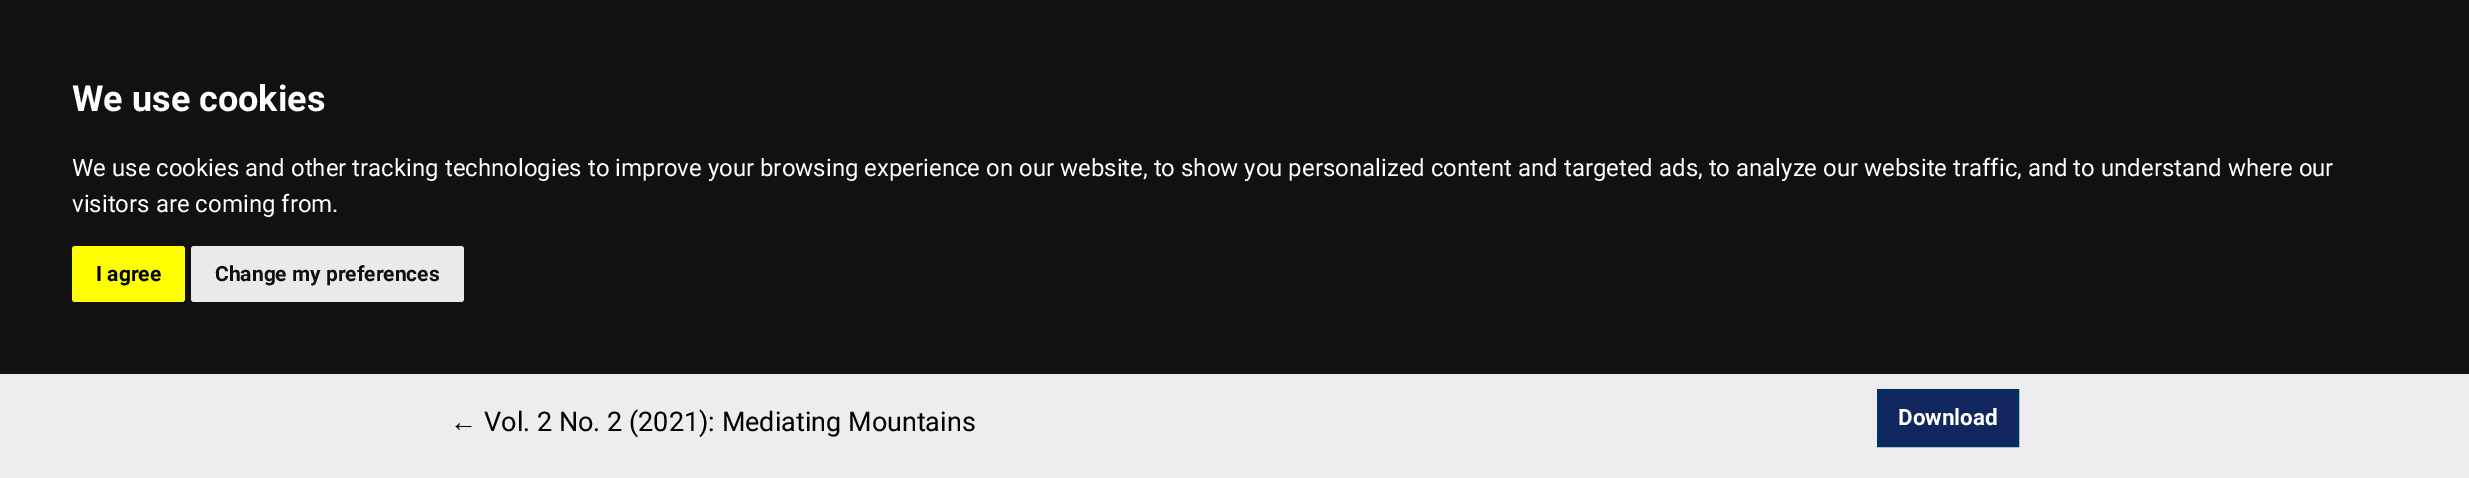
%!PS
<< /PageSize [2469 478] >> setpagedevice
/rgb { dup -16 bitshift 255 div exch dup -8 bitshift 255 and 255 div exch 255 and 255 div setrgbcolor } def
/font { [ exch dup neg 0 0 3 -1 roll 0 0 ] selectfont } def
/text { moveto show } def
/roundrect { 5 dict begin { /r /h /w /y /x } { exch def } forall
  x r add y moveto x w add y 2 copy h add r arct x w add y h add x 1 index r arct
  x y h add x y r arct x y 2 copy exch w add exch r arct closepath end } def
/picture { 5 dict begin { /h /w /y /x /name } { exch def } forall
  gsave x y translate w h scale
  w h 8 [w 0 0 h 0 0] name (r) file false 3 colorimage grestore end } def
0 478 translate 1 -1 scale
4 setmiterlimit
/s1 { /Roboto-Bold 36 font 16#FFFFFF rgb } def
/s2 { /Roboto-Regular 24 font 16#FFFFFF rgb } def
/s3 { /Roboto-Bold 21 font 16#000000 rgb } def
/s4 { /Roboto-Bold 21 font 16#111111 rgb } def
/s5 { /LiberationSans-Regular 27 font 16#000000 rgb } def
/s6 { /Roboto-Regular 27 font 16#000000 rgb } def
/s7 { /Roboto-Bold 22.5 font 16#FFFFFF rgb } def
16#FFFFFF rgb
0 0 2469 478 rectfill
16#111111 rgb
0 0 2469 374 rectfill
s1
(We use cookies) 72 111 text
s2
(We use cookies and other tracking technologies to improve your browsing experience on our website, to show you personalized content and targeted ads, to analyze our website traffic, and to understand where our) 72 176 text
(visitors are coming from.) 72 212 text
16#FFFF00 rgb
72 246 113 56 3 roundrect fill
s3
(I agree) 96 281 text
16#EAEAEA rgb
191 246 273 56 3 roundrect fill
s4
(Change my preferences) 215 281 text
(pic1.raw) 0 374 2469 104 picture
s5
(←) 450 431 text
s6
(Vol. 2 No. 2 \(2021\): Mediating Mountains) 484 431 text
16#11255F rgb
1878.5 390.5 moveto 2017.5 390.5 lineto 2017.5 445.5 lineto 1878.5 445.5 lineto closepath gsave fill grestore
16#00315E rgb
3 setlinewidth
stroke
s7
(Download) 1898 425 text
showpage
